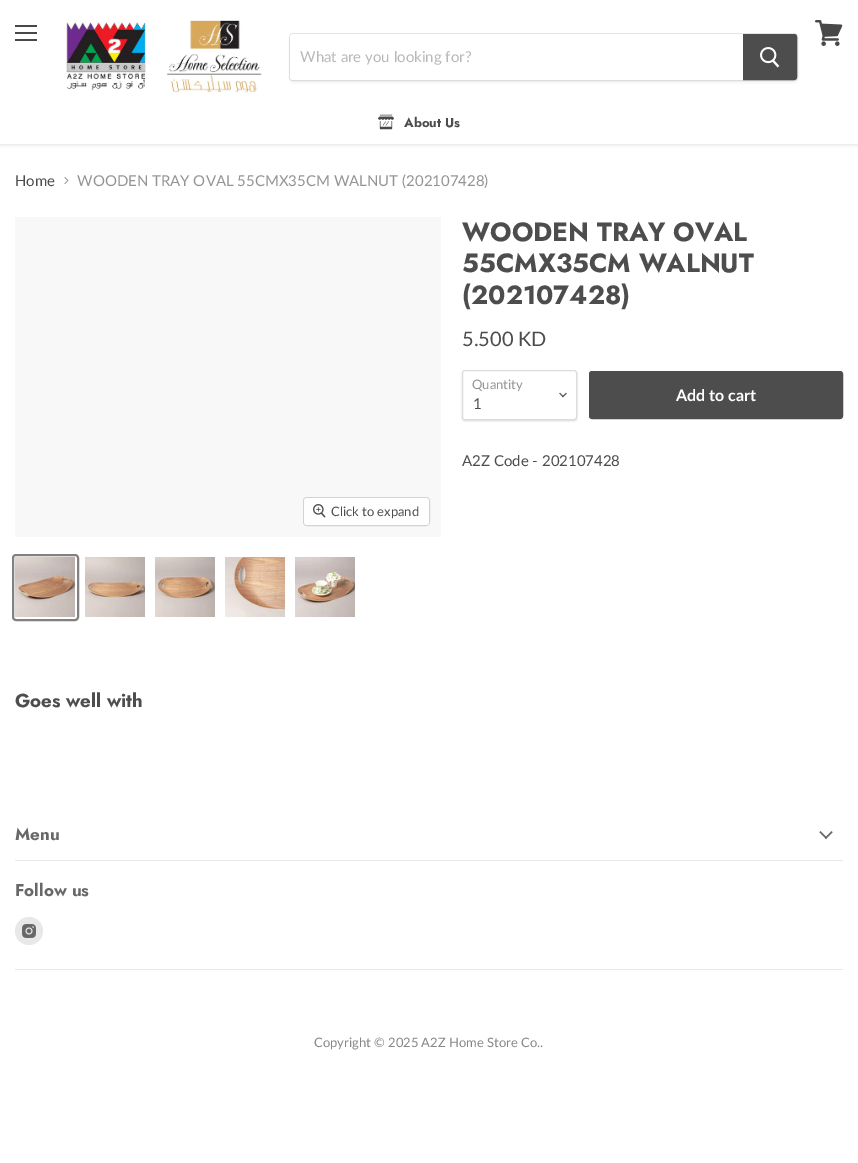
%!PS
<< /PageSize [858 1163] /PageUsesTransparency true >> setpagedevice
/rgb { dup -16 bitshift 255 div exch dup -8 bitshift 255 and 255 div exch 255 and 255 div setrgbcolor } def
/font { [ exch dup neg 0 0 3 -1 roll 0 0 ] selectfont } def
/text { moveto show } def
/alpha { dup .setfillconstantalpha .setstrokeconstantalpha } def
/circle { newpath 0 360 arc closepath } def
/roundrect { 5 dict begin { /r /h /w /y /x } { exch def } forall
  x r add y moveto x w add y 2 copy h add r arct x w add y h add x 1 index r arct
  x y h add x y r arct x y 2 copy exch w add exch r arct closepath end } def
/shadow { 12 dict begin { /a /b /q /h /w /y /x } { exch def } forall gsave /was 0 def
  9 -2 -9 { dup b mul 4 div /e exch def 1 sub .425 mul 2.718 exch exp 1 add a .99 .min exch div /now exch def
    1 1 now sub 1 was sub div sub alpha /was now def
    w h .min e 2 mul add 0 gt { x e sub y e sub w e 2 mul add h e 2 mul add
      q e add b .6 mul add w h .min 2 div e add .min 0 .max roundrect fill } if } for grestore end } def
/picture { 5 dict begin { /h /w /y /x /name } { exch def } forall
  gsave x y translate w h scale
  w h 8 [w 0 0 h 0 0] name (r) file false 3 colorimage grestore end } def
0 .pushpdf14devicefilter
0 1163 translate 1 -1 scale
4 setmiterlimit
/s1 { /Lato-Regular 15 font 16#B8B8B8 rgb } def
/s2 { /Jost-Bold 13 font 16#4D4D4D rgb } def
/s3 { /Lato-Regular 15 font 16#4D4D4D rgb } def
/s4 { /Lato-Regular 15 font 16#949494 rgb } def
/s5 { /Jost-Bold 26.25 font 16#4D4D4D rgb } def
/s6 { /Lato-Regular 20 font 16#4D4D4D rgb } def
/s7 { /Lato-Regular 13 font 16#949494 rgb } def
/s8 { /Lato-Bold 16 font 16#FFFFFF rgb } def
/s9 { /Lato-Regular 13 font 16#4D4D4D rgb } def
/s10 { /Jost-Bold 18.75 font 16#4D4D4D rgb } def
/s11 { /Jost-Bold 17 font 16#686868 rgb } def
/s12 { /Lato-Regular 13 font 16#868686 rgb } def
16#FFFFFF rgb
0 0 858 1163 rectfill
gsave
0 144 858 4 rectclip
16#808080 rgb
0 1 858 144 0 2 0.25 shadow
grestore
16#484848 rgb
15 25 22 2 rectfill
15 32 22 2 rectfill
15 39 22 2 rectfill
(pic1.raw) 815 20 28 26 picture
(pic2.raw) 66 20 196 74 picture
16#808080 rgb
289 35 509 48 4 1.5 0.11 shadow
0.2 alpha
289.5 33.5 508 47 3.5 roundrect stroke
1 alpha
16#FFFFFF rgb
293 34 moveto 743 34 lineto 743 80 lineto 293 80 lineto 291.5 80 290 78.5 290 77 curveto 290 37 lineto 290 35.5 291.5 34 293 34 curveto closepath fill
s1
(What are you looking for?) 300 62 text
16#4D4D4D rgb
743.5 34.5 moveto 794 34.5 lineto 795.5 34.5 796.5 35.5 796.5 37 curveto 796.5 77 lineto 796.5 78.5 795.5 79.5 794 79.5 curveto 743.5 79.5 lineto closepath gsave fill grestore
stroke
(pic3.raw) 760 47 20 21 picture
(pic4.raw) 378 114 16 16 picture
s2
(About Us) 404 127 text
s3
(Home) 15 186 text
(pic5.raw) 64 177 5 7 picture
s4
(WOODEN TRAY OVAL 55CMX35CM WALNUT \(202107428\)) 77 186 text
s5
(WOODEN TRAY OVAL) 462 241 text
(55CMX35CM WALNUT) 462 272 text
(\(202107428\)) 462 304 text
s6
(5.500 KD) 462 346 text
16#000000 rgb
462 371 115 50 3 1 0.15 shadow
16#FFFFFF rgb
462.5 370.5 114 49 2.5 roundrect gsave fill grestore
16#DDDDDD rgb
stroke
s7
(Quantity) 472 389 text
(pic6.raw) 559 392 8 6 picture
s3
(1) 473 409 text
589.5 371.5 253 47 2.5 roundrect gsave fill grestore
stroke
s8
(Add to cart) 676 401 text
s3
(A2Z Code - 202107428) 462 466 text
16#F8F8F8 rgb
15 217 426 320 rectfill
16#D3D3D3 rgb
303.5 497.5 126 28 3.5 roundrect stroke
0.9 alpha
16#FFFFFF rgb
304 498 125 27 3 roundrect fill
1 alpha
(pic7.raw) 313 504 13 14 picture
s9
(Click to expand) 331 516 text
16#818181 rgb
2 setlinewidth
13 555 65 65 3 roundrect stroke
(pic8.raw) 15 557 60 60 picture
(pic9.raw) 85 557 60 60 picture
(pic10.raw) 155 557 60 60 picture
(pic11.raw) 225 557 60 60 picture
(pic12.raw) 295 557 60 60 picture
s10
(Goes well with) 15 707 text
16#E8E8E8 rgb
15 860 828 1 rectfill
s11
(Menu) 15 840 text
(pic13.raw) 819 831 14 8 picture
16#E8E8E8 rgb
15 969 828 1 rectfill
s11
(Follow us) 15 896 text
16#E8E8E8 rgb
29 931 14 circle fill
(pic14.raw) 22 924 14 14 picture
s12
(Copyright © 2025 A2Z Home Store Co..) 314 1047 text
.poppdf14devicefilter showpage
